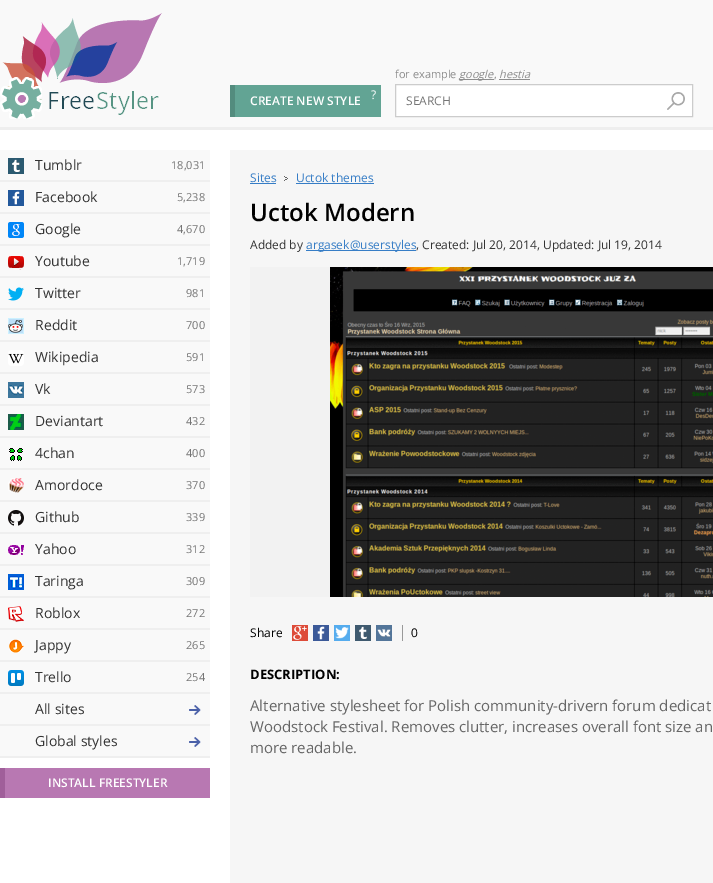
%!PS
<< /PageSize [713 883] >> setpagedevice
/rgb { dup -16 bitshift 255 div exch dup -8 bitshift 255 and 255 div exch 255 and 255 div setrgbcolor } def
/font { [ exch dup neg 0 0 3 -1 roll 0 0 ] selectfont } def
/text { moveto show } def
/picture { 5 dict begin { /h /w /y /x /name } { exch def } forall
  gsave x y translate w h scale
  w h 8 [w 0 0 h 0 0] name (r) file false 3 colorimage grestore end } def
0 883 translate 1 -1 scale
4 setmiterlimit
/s1 { /OpenSans-Regular 12 font 16#FFFFFF rgb } def
/s2 { /OpenSans-SemiBold 12 font 16#FFFFFF rgb } def
/s3 { /OpenSans-Regular 11 font 16#8D8D8D rgb } def
/s4 { /OpenSans-Italic 11 font 16#8D8D8D rgb } def
/s5 { /OpenSans-Regular 12 font 16#757575 rgb } def
/s6 { /OpenSans-Regular 14 font 16#333333 rgb } def
/s7 { /OpenSans-Regular 11 font 16#757575 rgb } def
/s8 { /OpenSans-Regular 12 font 16#367DC6 rgb } def
/s9 { /OpenSans-SemiBold 24 font 16#000000 rgb } def
/s10 { /OpenSans-Regular 12 font 16#333333 rgb } def
/s11 { /OpenSans-Regular 12 font 16#000000 rgb } def
/s12 { /OpenSans-Bold 13 font 16#000000 rgb } def
/s13 { /OpenSans-Regular 15 font 16#666666 rgb } def
16#FFFFFF rgb
0 0 713 883 rectfill
16#F9F9F9 rgb
0 0 713 127 rectfill
16#EEEEEE rgb
0 127 713 3 rectfill
(pic1.raw) 0 13 162 106 picture
16#62A494 rgb
235 85 146 32 rectfill
s1
(?) 371 99 text
16#538C7E rgb
230 85 5 32 rectfill
s2
(CREATE NEW STYLE) 250 105 text
s3
(for example) 395 78 text
459 79 35 1 rectfill
s4
(google) 459 78 text
s3
(,) 494 78 text
s4
(hestia) 499 78 text
499 79 31 1 rectfill
16#FFFFFF rgb
395.5 84.5 moveto 692.5 84.5 lineto 692.5 116.5 lineto 395.5 116.5 lineto closepath gsave fill grestore
16#CCCCCC rgb
stroke
s5
(SEARCH) 406 105 text
(pic2.raw) 667 92 18 18 picture
16#F9F9F9 rgb
0 150 210 30 rectfill
16#EFEFEF rgb
0 180 210 2 rectfill
(pic3.raw) 8 158 16 16 picture
s6
(Tumblr) 35 170 text
s7
(18,031) 171 169 text
16#F9F9F9 rgb
0 182 210 30 rectfill
16#EFEFEF rgb
0 212 210 2 rectfill
(pic4.raw) 8 190 16 16 picture
s6
(Facebook) 35 202 text
s7
(5,238) 177 201 text
16#F9F9F9 rgb
0 214 210 30 rectfill
16#EFEFEF rgb
0 244 210 2 rectfill
(pic5.raw) 8 222 16 16 picture
s6
(Google) 35 234 text
s7
(4,670) 177 233 text
16#F9F9F9 rgb
0 246 210 30 rectfill
16#EFEFEF rgb
0 276 210 2 rectfill
(pic6.raw) 8 256 16 14 picture
s6
(Youtube) 35 266 text
s7
(1,719) 177 265 text
16#F9F9F9 rgb
0 278 210 30 rectfill
16#EFEFEF rgb
0 308 210 2 rectfill
(pic7.raw) 8 287 16 14 picture
s6
(Twitter) 35 298 text
s7
(981) 186 297 text
16#F9F9F9 rgb
0 310 210 30 rectfill
16#EFEFEF rgb
0 340 210 2 rectfill
(pic8.raw) 8 318 16 16 picture
s6
(Reddit) 35 330 text
s7
(700) 186 329 text
16#F9F9F9 rgb
0 342 210 30 rectfill
16#EFEFEF rgb
0 372 210 2 rectfill
(pic9.raw) 8 350 16 16 picture
s6
(Wikipedia) 35 362 text
s7
(591) 186 361 text
16#F9F9F9 rgb
0 374 210 30 rectfill
16#EFEFEF rgb
0 404 210 2 rectfill
(pic10.raw) 8 382 16 16 picture
s6
(Vk) 35 394 text
s7
(573) 186 393 text
16#F9F9F9 rgb
0 406 210 30 rectfill
16#EFEFEF rgb
0 436 210 2 rectfill
(pic11.raw) 8 414 16 16 picture
s6
(Deviantart) 35 426 text
s7
(432) 186 425 text
16#F9F9F9 rgb
0 438 210 30 rectfill
16#EFEFEF rgb
0 468 210 2 rectfill
(pic12.raw) 9 448 14 13 picture
s6
(4chan) 35 458 text
s7
(400) 186 457 text
16#F9F9F9 rgb
0 470 210 30 rectfill
16#EFEFEF rgb
0 500 210 2 rectfill
(pic13.raw) 8 478 16 15 picture
s6
(Amordoce) 35 490 text
s7
(370) 186 489 text
16#F9F9F9 rgb
0 502 210 30 rectfill
16#EFEFEF rgb
0 532 210 2 rectfill
(pic14.raw) 8 510 16 16 picture
s6
(Github) 35 522 text
s7
(339) 186 521 text
16#F9F9F9 rgb
0 534 210 30 rectfill
16#EFEFEF rgb
0 564 210 2 rectfill
(pic15.raw) 8 545 16 10 picture
s6
(Yahoo) 35 554 text
s7
(312) 186 553 text
16#F9F9F9 rgb
0 566 210 30 rectfill
16#EFEFEF rgb
0 596 210 2 rectfill
(pic16.raw) 8 574 16 16 picture
s6
(Taringa) 35 586 text
s7
(309) 186 585 text
16#F9F9F9 rgb
0 598 210 30 rectfill
16#EFEFEF rgb
0 628 210 2 rectfill
(pic17.raw) 8 606 16 16 picture
s6
(Roblox) 35 618 text
s7
(272) 186 617 text
16#F9F9F9 rgb
0 630 210 30 rectfill
16#EFEFEF rgb
0 660 210 2 rectfill
(pic18.raw) 9 639 15 14 picture
s6
(Jappy) 35 650 text
s7
(265) 186 649 text
16#F9F9F9 rgb
0 662 210 30 rectfill
16#EFEFEF rgb
0 692 210 2 rectfill
(pic19.raw) 8 670 16 16 picture
s6
(Trello) 35 682 text
s7
(254) 186 681 text
16#F9F9F9 rgb
0 694 210 30 rectfill
16#EFEFEF rgb
0 724 210 2 rectfill
s6
(All sites) 35 714 text
(pic20.raw) 189 705 12 10 picture
16#F9F9F9 rgb
0 726 210 30 rectfill
16#EFEFEF rgb
0 756 210 2 rectfill
s6
(Global styles) 35 746 text
(pic20.raw) 189 737 12 10 picture
16#B878B2 rgb
5 768 205 30 rectfill
16#A05F9A rgb
0 768 5 30 rectfill
s2
(INSTALL FREESTYLER) 48 787 text
16#F6F6F6 rgb
230 150 483 733 rectfill
s8
(Sites) 250 182 text
250 183 26 1 rectfill
(pic21.raw) 284 176 4 5 picture
(Uctok themes) 296 182 text
296 183 78 1 rectfill
s9
(Uctok Modern) 250 221 text
s10
(Added by) 250 249 text
16#367DC6 rgb
306 250 110 1 rectfill
(argasek@userstyles) 306 249 text
s10
(, Created: Jul 20, 2014, Updated: Jul 19, 2014) 416 249 text
16#F2F2F2 rgb
250 267 80 330 rectfill
(pic22.raw) 330 267 383 330 picture
s11
(Share) 250 637 text
(pic23.raw) 292 625 16 16 picture
(pic24.raw) 313 625 16 16 picture
(pic25.raw) 334 625 16 16 picture
(pic26.raw) 355 625 16 16 picture
(pic27.raw) 376 625 16 16 picture
16#999999 rgb
402 625 1 16 rectfill
s11
(0) 411 637 text
s12
(DESCRIPTION:) 250 679 text
s13
(Alternative stylesheet for Polish community-drivern forum dedicat) 250 711 text
(Woodstock Festival. Removes clutter, increases overall font size an) 250 732 text
(more readable.) 250 753 text
showpage
